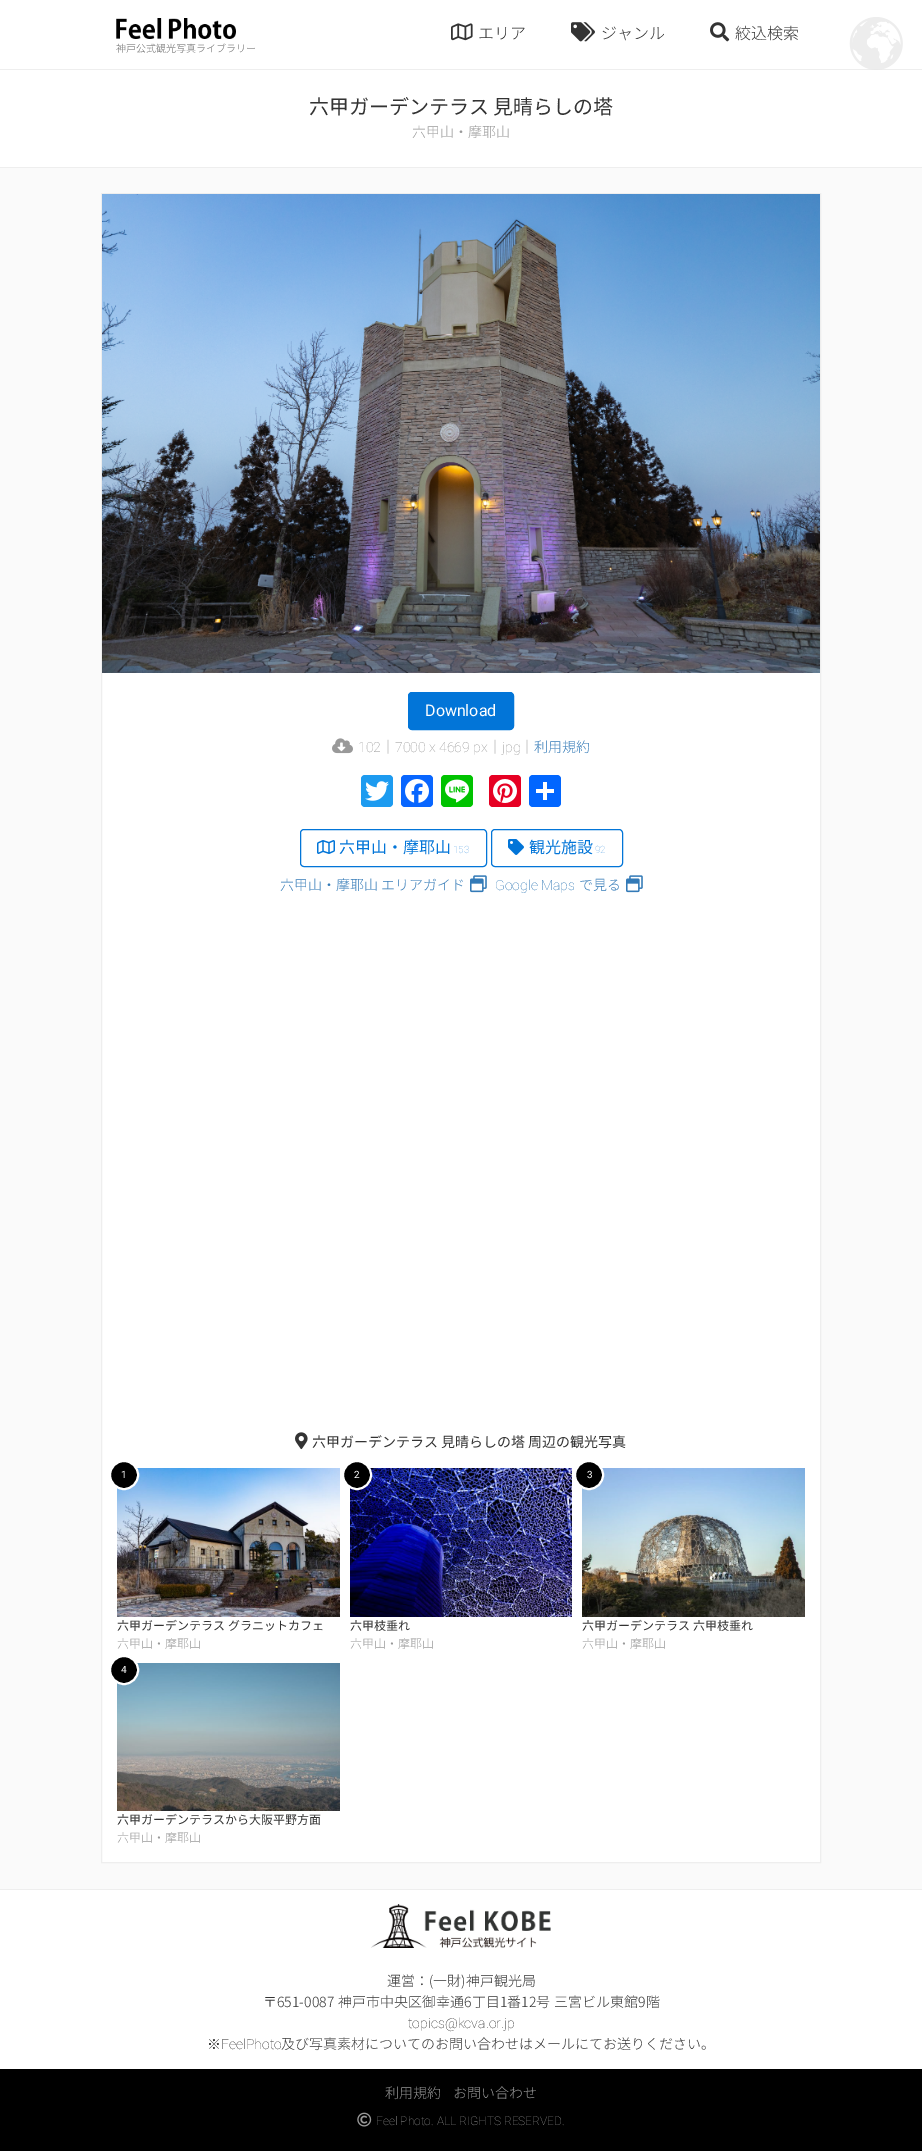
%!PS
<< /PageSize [922 2151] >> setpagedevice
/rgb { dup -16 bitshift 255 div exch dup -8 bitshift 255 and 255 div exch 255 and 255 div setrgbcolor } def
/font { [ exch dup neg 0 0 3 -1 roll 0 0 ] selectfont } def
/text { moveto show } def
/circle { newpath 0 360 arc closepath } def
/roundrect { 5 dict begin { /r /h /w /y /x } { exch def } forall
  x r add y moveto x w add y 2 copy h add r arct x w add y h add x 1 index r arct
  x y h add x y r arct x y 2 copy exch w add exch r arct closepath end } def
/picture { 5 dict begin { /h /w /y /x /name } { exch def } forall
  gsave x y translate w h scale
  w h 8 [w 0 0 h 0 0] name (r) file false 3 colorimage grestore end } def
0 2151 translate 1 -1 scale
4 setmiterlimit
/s1 { /NotoSansJP-Light 16 font 16#333333 rgb } def
/s2 { /NotoSansJP-Light 10 font 16#666666 rgb } def
/s3 { /NotoSansJP-Regular 20 font 16#333333 rgb } def
/s4 { /NotoSansJP-Light 14 font 16#999999 rgb } def
/s5 { /Roboto-Regular 16 font 16#FFFFFF rgb } def
/s6 { /Roboto-Thin 14 font 16#999999 rgb } def
/s7 { /NotoSansJP-Light 14 font 16#337AB7 rgb } def
/s8 { /NotoSansJP-Regular 16 font 16#0275D8 rgb } def
/s9 { /Roboto-Thin 10 font 16#67ACE8 rgb } def
/s10 { /Roboto-Thin 14 font 16#337AB7 rgb } def
/s11 { /NotoSansJP-Regular 14 font 16#333333 rgb } def
/s12 { /Roboto-Regular 10 font 16#FFFFFF rgb } def
/s13 { /NotoSansJP-Regular 12 font 16#333333 rgb } def
/s14 { /NotoSansJP-Light 12 font 16#999999 rgb } def
/s15 { /NotoSansJP-Light 14 font 16#333333 rgb } def
/s16 { /Roboto-Thin 14 font 16#333333 rgb } def
/s17 { /WenQuanYiZenHei-Medium 14 font 16#333333 rgb } def
/s18 { /Roboto-Thin 12 font 16#999999 rgb } def
16#000000 rgb
0 0 922 2151 rectfill
16#FAFAFA rgb
0 168 922 1721 rectfill
16#FFFFFF rgb
0 0 922 69 rectfill
16#EEEEEE rgb
0 69 922 1 rectfill
(pic1.raw) 451 23 22 18 picture
s1
(エリア) 478 39 text
(pic2.raw) 571 22 24 20 picture
(ジャンル) 601 39 text
(pic3.raw) 710 22 20 20 picture
(絞込検索) 735 39 text
(pic4.raw) 116 18 120 21 picture
s2
(神戸公式観光写真ライブラリー) 116 52 text
16#FFFFFF rgb
0 70 922 97 rectfill
16#EEEEEE rgb
0 167 922 1 rectfill
s3
(六甲ガーデンテラス 見晴らしの塔) 309 114 text
s4
(六甲山・摩耶山) 412 137 text
16#FFFFFF rgb
102 673 718 1189 rectfill
16#EEEEEE rgb
101.5 193.5 719 1669 rectstroke
(pic5.raw) 102 194 718 479 picture
16#0275D8 rgb
408.5 692.5 105 37 3.5 roundrect gsave fill grestore
stroke
s5
(Download) 425 716 text
(pic6.raw) 332 738 21 16 picture
s6
(102) 358 752 text
s4
(｜) 381 752 text
s6
(7000 x 4669 px) 395 752 text
s4
(｜) 488 752 text
s6
(jpg) 502 752 text
s4
(｜) 520 752 text
s7
(利用規約) 534 752 text
16#1D9BF0 rgb
361 775 32 32 4 roundrect fill
(pic7.raw) 365 781 24 20 picture
16#0866FF rgb
401 775 32 32 4 roundrect fill
(pic8.raw) 405 779 24 24 picture
16#00C300 rgb
441 775 32 32 4 roundrect fill
(pic9.raw) 445 779 24 24 picture
16#E60023 rgb
489 775 32 32 4 roundrect fill
(pic10.raw) 493 779 24 24 picture
16#0166FF rgb
529 775 32 32 4 roundrect fill
16#FFFFFF rgb
543 782 4 18 rectfill
536 789 18 4 rectfill
16#0275D8 rgb
300.5 829.5 186 37 3.5 roundrect stroke
(pic11.raw) 317 840 18 14 picture
s8
(六甲山・摩耶山) 339 853 text
s9
(153) 453 853 text
16#0275D8 rgb
491.5 829.5 131 37 3.5 roundrect stroke
(pic12.raw) 508 839 16 16 picture
s8
(観光施設) 529 853 text
s9
(92) 595 853 text
s7
(六甲山・摩耶山 エリアガイド) 280 890 text
(pic13.raw) 470 875 17 18 picture
s10
(Google Maps) 495 890 text
s7
(で見る) 579 890 text
(pic13.raw) 626 875 17 18 picture
(pic14.raw) 295 1432 13 18 picture
s11
(六甲ガーデンテラス 見晴らしの塔 周辺の観光写真) 312 1447 text
(pic15.raw) 117 1468 223 149 picture
16#000000 rgb
124 1475 14 circle gsave fill grestore
16#FFFFFF rgb
2 setlinewidth
stroke
s12
(1) 121 1478 text
s13
(六甲ガーデンテラス グラニットカフェ) 117 1630 text
s14
(六甲山・摩耶山) 117 1648 text
(pic16.raw) 350 1468 222 149 picture
16#000000 rgb
357 1475 14 circle gsave fill grestore
16#FFFFFF rgb
stroke
s12
(2) 354 1478 text
s13
(六甲枝垂れ) 350 1630 text
s14
(六甲山・摩耶山) 350 1648 text
(pic17.raw) 582 1468 223 149 picture
16#000000 rgb
589 1475 14 circle gsave fill grestore
16#FFFFFF rgb
stroke
s12
(3) 587 1478 text
s13
(六甲ガーデンテラス 六甲枝垂れ) 582 1630 text
s14
(六甲山・摩耶山) 582 1648 text
(pic18.raw) 117 1663 223 148 picture
16#000000 rgb
124 1670 14 circle gsave fill grestore
16#FFFFFF rgb
stroke
s12
(4) 121 1673 text
s13
(六甲ガーデンテラスから大阪平野方面) 117 1824 text
s14
(六甲山・摩耶山) 117 1842 text
16#EEEEEE rgb
0 1889 922 1 rectfill
16#FFFFFF rgb
0 1890 922 179 rectfill
(pic19.raw) 371 1904 180 44 picture
s15
(運営：\(一財\)神戸観光局) 387 1986 text
263 2007 moveto 1 0 32 (〒651-0087 神戸市中央区御幸通6丁目1番12号 三宮ビル東館9階) widthshow
s16
(topics@kcva.or.jp) 408 2028 text
s17
(※) 207 2049 text
s16
(FeelPhoto) 221 2049 text
s15
(及び写真素材についてのお問い合わせはメールにてお送りください。) 281 2049 text
s4
(利用規約) 385 2098 text
(お問い合わせ) 453 2098 text
(pic20.raw) 357 2112 15 15 picture
s18
(Feel Photo. ALL RIGHTS RESERVED.) 376 2125 text
(pic21.raw) 849 17 54 53 picture
showpage
